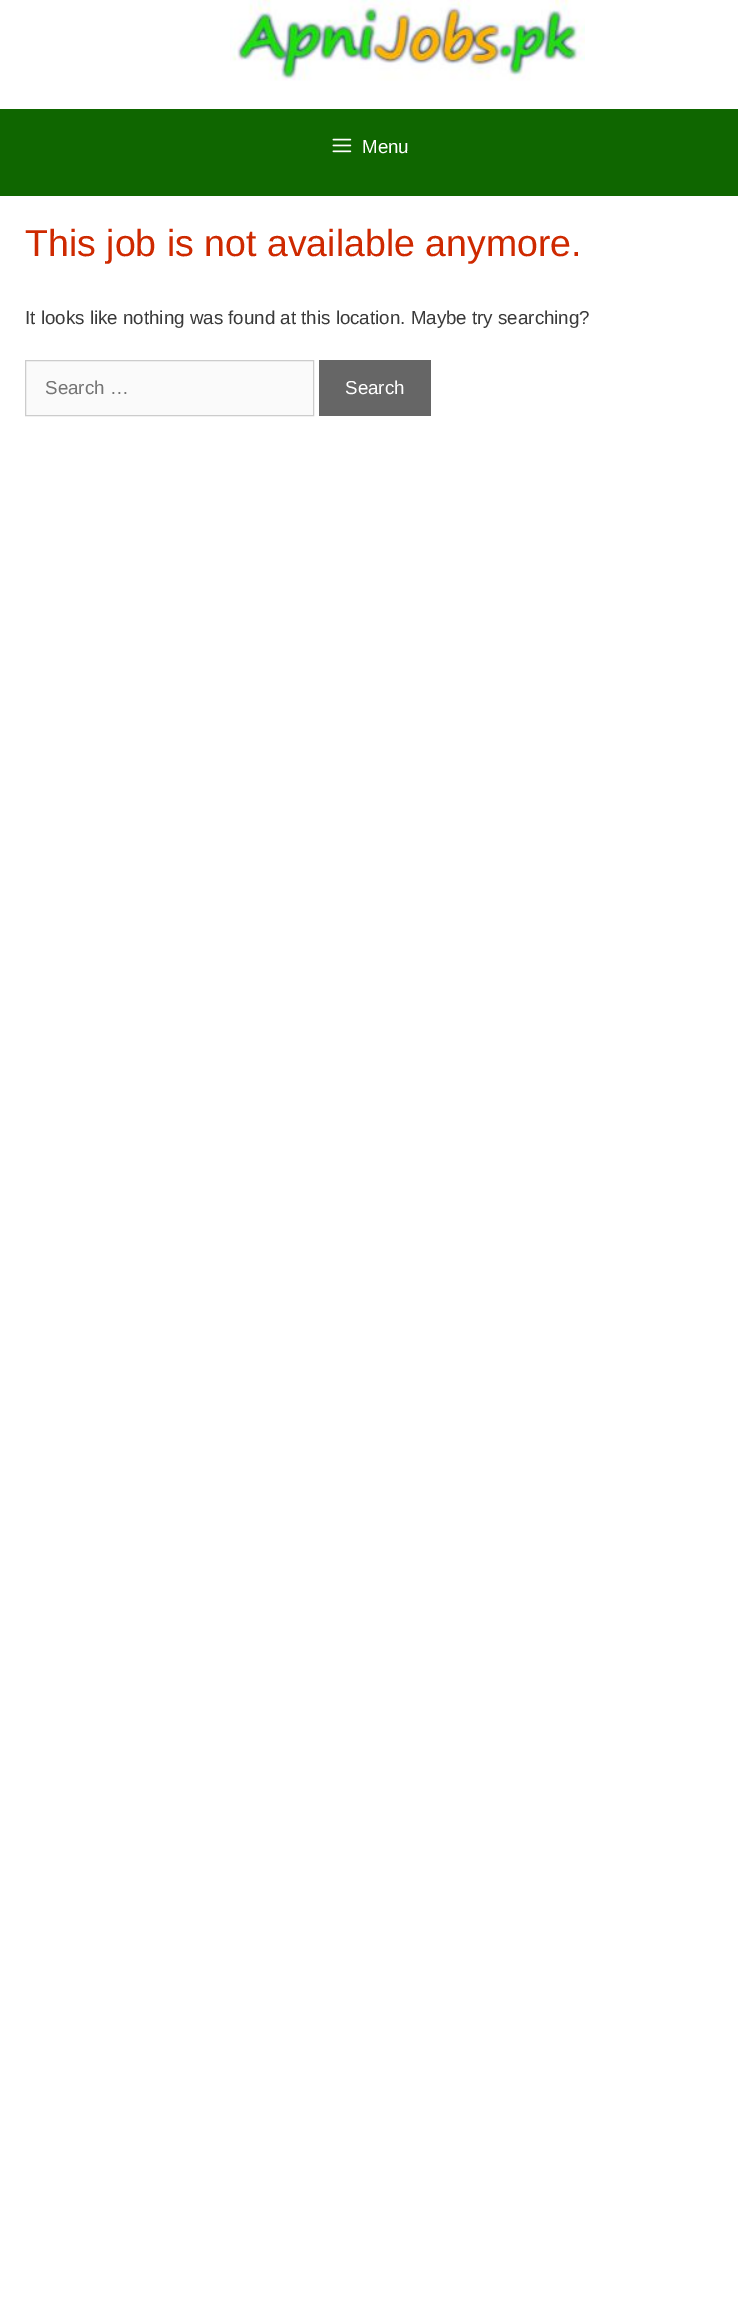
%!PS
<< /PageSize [738 2323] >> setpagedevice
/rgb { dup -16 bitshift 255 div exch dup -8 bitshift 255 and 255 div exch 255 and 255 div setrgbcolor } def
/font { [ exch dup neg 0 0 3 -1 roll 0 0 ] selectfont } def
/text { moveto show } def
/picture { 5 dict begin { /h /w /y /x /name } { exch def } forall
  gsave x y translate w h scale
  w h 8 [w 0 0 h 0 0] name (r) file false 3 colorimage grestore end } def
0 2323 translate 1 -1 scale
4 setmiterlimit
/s1 { /LiberationSans-Regular 18.75 font 16#FFFFFF rgb } def
/s2 { /LiberationSans-Regular 37.5 font 16#CE2900 rgb } def
/s3 { /LiberationSans-Regular 18.75 font 16#3A3A3A rgb } def
/s4 { /LiberationSans-Regular 18.75 font 16#757575 rgb } def
16#FFFFFF rgb
0 0 738 2323 rectfill
(pic1.raw) 230 0 355 81 picture
16#0F6600 rgb
0 109 738 87 rectfill
(pic2.raw) 332 138 20 15 picture
s1
(Menu) 362 153 text
s2
(This job is not available anymore.) 25 256 text
s3
(It looks like nothing was found at this location. Maybe try searching?) 25 324 text
16#FAFAFA rgb
25.5 360.5 moveto 313.5 360.5 lineto 313.5 415.5 lineto 25.5 415.5 lineto closepath gsave fill grestore
16#CCCCCC rgb
stroke
s4
(Search …) 45 394 text
16#666666 rgb
319 360 112 56 rectfill
s1
(Search) 345 394 text
showpage
